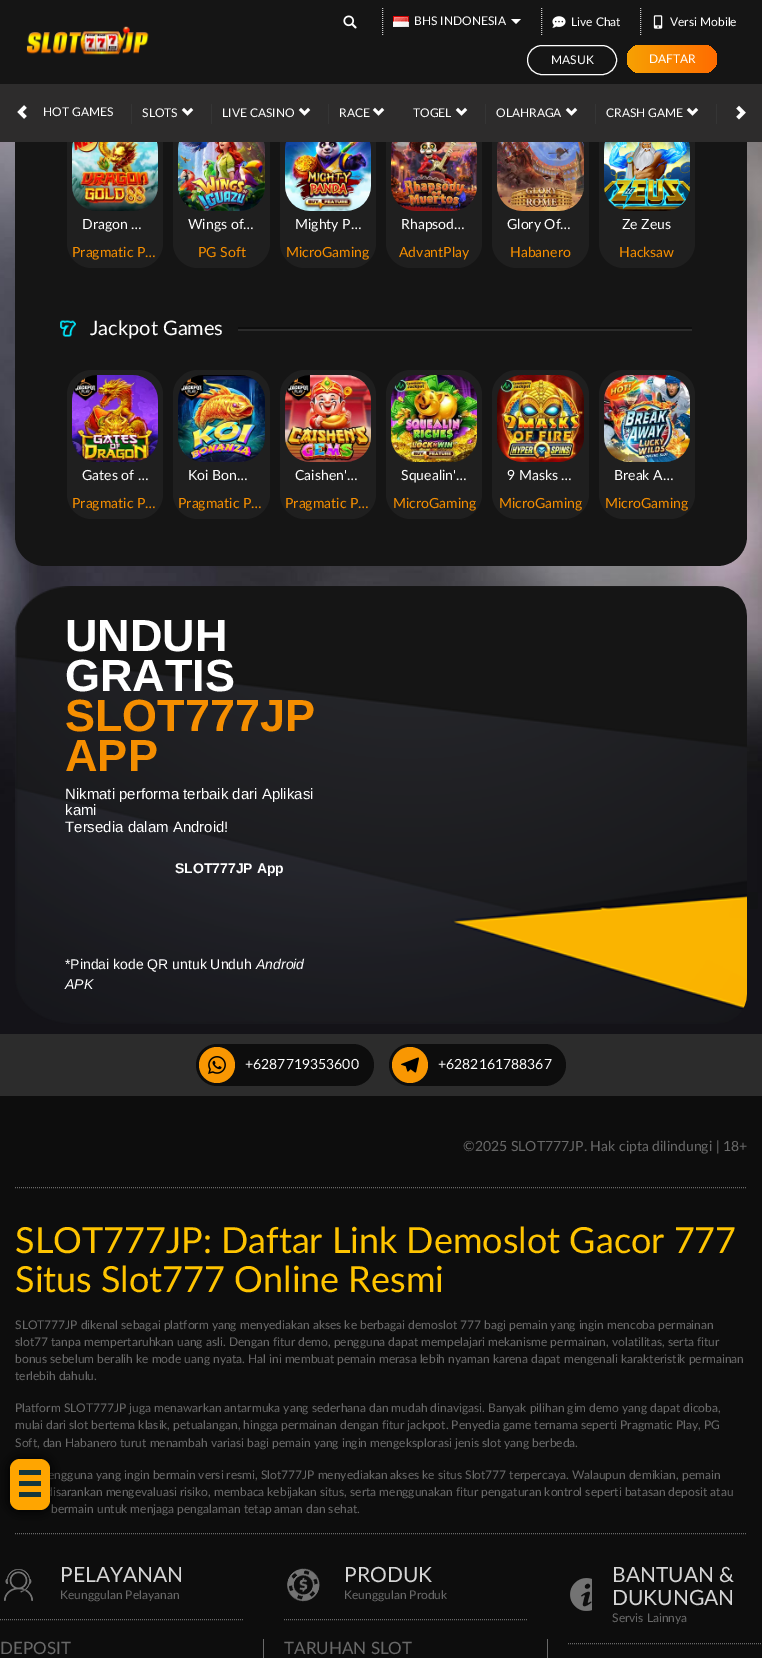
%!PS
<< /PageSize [762 1658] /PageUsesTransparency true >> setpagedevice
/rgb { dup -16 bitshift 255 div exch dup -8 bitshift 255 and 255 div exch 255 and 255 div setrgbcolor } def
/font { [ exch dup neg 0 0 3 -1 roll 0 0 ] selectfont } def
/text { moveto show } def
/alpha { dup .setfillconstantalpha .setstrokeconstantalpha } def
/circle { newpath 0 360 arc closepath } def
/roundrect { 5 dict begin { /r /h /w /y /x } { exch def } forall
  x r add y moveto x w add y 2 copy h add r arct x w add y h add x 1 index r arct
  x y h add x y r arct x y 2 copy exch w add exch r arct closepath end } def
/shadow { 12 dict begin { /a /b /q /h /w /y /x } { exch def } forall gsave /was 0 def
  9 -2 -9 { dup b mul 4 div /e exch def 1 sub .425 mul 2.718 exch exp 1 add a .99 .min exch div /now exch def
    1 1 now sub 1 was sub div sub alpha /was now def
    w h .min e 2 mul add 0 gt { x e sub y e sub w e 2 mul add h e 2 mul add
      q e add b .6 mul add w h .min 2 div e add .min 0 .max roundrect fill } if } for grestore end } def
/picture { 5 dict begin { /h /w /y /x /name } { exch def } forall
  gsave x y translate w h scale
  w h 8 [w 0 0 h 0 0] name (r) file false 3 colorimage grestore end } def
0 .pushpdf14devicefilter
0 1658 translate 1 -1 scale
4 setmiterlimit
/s1 { /Lato-Regular 12 font 16#FFFFFF rgb } def
/s2 { /Lato-Regular 14 font 16#FFFFFF rgb } def
/s3 { /Lato-Regular 14 font 16#F58E00 rgb } def
/s4 { /Lato-Regular 20 font 16#FFFFFF rgb } def
/s5 { /LiberationSans-Bold 45 font 16#FFFFFF rgb } def
/s6 { /LiberationSans-Bold 45 font 16#F58E00 rgb } def
/s7 { /LiberationSans-Regular 15 font 16#FFFFFF rgb } def
/s8 { /LiberationSans-Bold 14 font 16#FFFFFF rgb } def
/s9 { /LiberationSans-Regular 14 font 16#FFFFFF rgb } def
/s10 { /LiberationSans-Italic 14 font 16#FFFFFF rgb } def
/s11 { /Lato-Regular 14 font 16#696969 rgb } def
/s12 { /Lato-Regular 36 font 16#FFC400 rgb } def
/s13 { /Lato-Regular 12 font 16#696969 rgb } def
/s14 { /Lato-Regular 21 font 16#D5D5D5 rgb } def
/s15 { /Lato-Regular 17 font 16#696969 rgb } def
16#0D0D0D rgb
0 0 762 1658 rectfill
(pic9.raw) 0 142 762 892 picture
16#151515 rgb
15 -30 732 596 30 roundrect fill
0 0 762 84 rectfill
(pic1.raw) 26 26 123 29 picture
(pic2.raw) 343 15 14 14 picture
16#CCCCCC rgb
[1 1] 0 setdash
382.5 8 moveto 382.5 35 lineto stroke
(pic3.raw) 393 16 16 11 picture
s1
(BHS INDONESIA) 414 25 text
511 19 moveto 521 19 lineto 516 24 lineto closepath fill
16#CCCCCC rgb
541.5 8 moveto 541.5 35 lineto stroke
(pic4.raw) 552 16 14 12 picture
s1
(Live Chat) 571 26 text
16#CCCCCC rgb
640.5 8 moveto 640.5 35 lineto stroke
(pic5.raw) 653 15 10 14 picture
s1
(Versi Mobile) 670 26 text
[] 0 setdash
527.5 45.5 89 29 14.5 roundrect stroke
(MASUK) 551 64 text
gsave 627 45 90 28 14 roundrect clip newpath
<< /ShadingType 2 /ColorSpace /DeviceRGB /Coords [627 59 717 59] /Extend [true true] /Function << /FunctionType 2 /Domain [0 1] /C0 [0.969 0.631 0.012] /C1 [1 0.424 0] /N 1 >> >> shfill grestore
(DAFTAR) 649 63 text
16#1F1F1F rgb
67 119 96 149 25 roundrect fill
173 119 97 149 25 roundrect fill
280 119 96 149 25 roundrect fill
386 119 96 149 25 roundrect fill
492 119 97 149 25 roundrect fill
599 119 96 149 25 roundrect fill
16#2D2C2C rgb
0 84 762 58 rectfill
(pic6.raw) 17 105 10 14 picture
s1
(HOT GAMES) 43 116 text
16#353535 rgb
131 104 1 20 rectfill
s1
(SLOTS) 142 117 text
(pic7.raw) 181 107 13 9 picture
16#353535 rgb
211 104 1 20 rectfill
s1
(LIVE CASINO) 222 117 text
(pic7.raw) 298 107 13 9 picture
16#353535 rgb
328 104 1 20 rectfill
s1
(RACE) 339 117 text
(pic7.raw) 372 107 13 9 picture
(TOGEL) 413 117 text
(pic7.raw) 455 107 13 9 picture
16#353535 rgb
485 104 1 20 rectfill
s1
(OLAHRAGA) 496 117 text
(pic7.raw) 565 107 13 9 picture
16#353535 rgb
595 104 1 20 rectfill
s1
(CRASH GAME) 606 117 text
(pic7.raw) 686 107 13 9 picture
16#353535 rgb
716 104 1 20 rectfill
(pic8.raw) 736 105 10 15 picture
(pic10.raw) 72 142 86 69 picture
s2
(Dragon …) 82 229 text
s3
(Pragmatic P…) 72 257 text
(pic11.raw) 178 142 87 69 picture
s2
(Wings of…) 188 229 text
s3
(PG Soft) 198 257 text
(pic12.raw) 285 142 86 69 picture
s2
(Mighty P…) 295 229 text
s3
(MicroGaming) 286 257 text
(pic13.raw) 391 142 86 69 picture
s2
(Rhapsod…) 401 229 text
s3
(AdvantPlay) 399 257 text
(pic14.raw) 497 142 87 69 picture
s2
(Glory Of…) 507 229 text
s3
(Habanero) 510 257 text
(pic15.raw) 604 142 86 69 picture
s2
(Ze Zeus) 622 229 text
s3
(Hacksaw) 619 257 text
(pic16.raw) 60 320 16 17 picture
s4
(Jackpot Games) 90 335 text
16#0D0D0D rgb
238 327 454 2 rectfill
16#2B2B2B rgb
238 329 454 2 rectfill
16#1F1F1F rgb
67 370 96 149 25 roundrect fill
(pic17.raw) 72 375 86 87 picture
s2
(Gates of …) 82 480 text
s3
(Pragmatic P…) 72 508 text
16#1F1F1F rgb
173 370 97 149 25 roundrect fill
(pic18.raw) 178 375 87 87 picture
s2
(Koi Bon…) 188 480 text
s3
(Pragmatic P…) 178 508 text
16#1F1F1F rgb
280 370 96 149 25 roundrect fill
(pic19.raw) 285 375 86 87 picture
s2
(Caishen'…) 295 480 text
s3
(Pragmatic P…) 285 508 text
16#1F1F1F rgb
386 370 96 149 25 roundrect fill
(pic20.raw) 391 375 86 87 picture
s2
(Squealin'…) 401 480 text
s3
(MicroGaming) 393 508 text
16#1F1F1F rgb
492 370 97 149 25 roundrect fill
(pic21.raw) 497 375 87 87 picture
s2
(9 Masks …) 507 480 text
s3
(MicroGaming) 499 508 text
16#1F1F1F rgb
599 370 96 149 25 roundrect fill
(pic22.raw) 604 375 86 87 picture
s2
(Break A…) 614 480 text
s3
(MicroGaming) 605 508 text
(pic23.raw) 15 586 732 438 picture
s5
(UNDUH) 65 651 text
(GRATIS) 65 691 text
s6
(SLOT777JP) 65 731 text
(APP) 65 771 text
s7
(Nikmati performa terbaik dari Aplikasi) 65 799 text
(kami) 65 815 text
(Tersedia dalam Android!) 65 832 text
s8
(SLOT777JP App) 175 873 text
s9
(*Pindai kode QR untuk Unduh) 65 969 text
s10
(Android) 256 969 text
(APK) 65 989 text
16#2C2C2C rgb
0 1034 762 62 rectfill
16#0D0D0D rgb
196 1044 178 42 21 roundrect fill
16#F99702 rgb
217 1065 18 circle fill
(pic24.raw) 208 1056 18 18 picture
s2
(+6287719353600) 245 1069 text
16#0D0D0D rgb
389 1044 177 42 21 roundrect fill
16#F99702 rgb
410 1065 18 circle fill
(pic25.raw) 401 1057 18 16 picture
s2
(+6282161788367) 438 1069 text
s11
(©2025 SLOT777JP. Hak cipta dilindungi | 18+) 463 1151 text
[1 1] 0 setdash
15 1187.5 moveto 747 1187.5 lineto stroke
s12
(SLOT777JP: Daftar Link Demoslot Gacor 777) 15 1253 text
(Situs Slot777 Online Resmi) 15 1292 text
s13
(SLOT777JP dikenal sebagai platform yang menyediakan akses ke berbagai demoslot 777 bagi pemain yang ingin mencoba permainan) 15 1329 text
(slot77 tanpa mempertaruhkan uang asli. Dengan fitur demo, pengguna dapat mempelajari mekanisme permainan, volatilitas, serta fitur) 15 1346 text
(bonus sebelum beralih ke mode uang nyata. Hal ini membuat pemain merasa lebih nyaman karena dapat mengenali karakteristik permainan) 15 1363 text
(terlebih dahulu.) 15 1380 text
(Platform SLOT777JP juga menawarkan antarmuka yang sederhana dan mudah dinavigasi. Banyak pilihan gim demo yang dapat dicoba,) 15 1412 text
(mulai dari slot bertema klasik, petualangan, hingga permainan dengan fitur jackpot. Penyedia game ternama seperti Pragmatic Play, PG) 15 1429 text
(Soft, dan Habanero turut menambah variasi bagi pemain yang ingin mengeksplorasi jenis slot yang berbeda.) 15 1447 text
(engguna yang ingin bermain versi resmi, Slot777JP menyediakan akses ke situs Slot777 terpercaya. Walaupun demikian, pemain) 48 1479 text
(disarankan mengevaluasi risiko, membaca kebijakan situs, serta menggunakan fitur pengaturan kontrol seperti batasan deposit atau) 46 1496 text
(bermain untuk menjaga pengalaman tetap aman dan sehat.) 51 1513 text
15 1533.5 moveto 747 1533.5 lineto stroke
0 1619.5 moveto 244 1619.5 lineto stroke
(pic26.raw) 4 1569 29 32 picture
s14
(PELAYANAN) 60 1582 text
s13
(Keunggulan Pelayanan) 60 1599 text
s15
(DEPOSIT) 0 1654 text
263 1639 1 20 0.5 roundrect fill
284 1619.5 moveto 528 1619.5 lineto stroke
(pic27.raw) 287 1568 33 34 picture
s14
(PRODUK) 344 1582 text
s13
(Keunggulan Produk) 344 1599 text
s15
(TARUHAN SLOT) 284 1654 text
547 1639 1 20 0.5 roundrect fill
568 1643.5 moveto 762 1643.5 lineto stroke
(pic28.raw) 570 1578 22 33 picture
s14
(BANTUAN &) 612 1582 text
(DUKUNGAN) 612 1605 text
s13
(Servis Lainnya) 612 1622 text
16#000000 rgb
9 1458 42 53 11 6 1 shadow
16#FFA500 rgb
10 1459 40 51 10 roundrect fill
16#14373D rgb
19 1470 22 5 rectfill
19 1481 22 5 rectfill
19 1492 22 5 rectfill
.poppdf14devicefilter showpage
